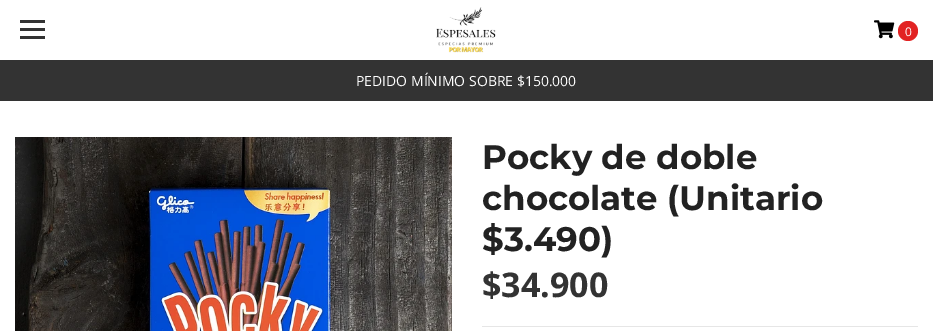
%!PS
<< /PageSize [933 331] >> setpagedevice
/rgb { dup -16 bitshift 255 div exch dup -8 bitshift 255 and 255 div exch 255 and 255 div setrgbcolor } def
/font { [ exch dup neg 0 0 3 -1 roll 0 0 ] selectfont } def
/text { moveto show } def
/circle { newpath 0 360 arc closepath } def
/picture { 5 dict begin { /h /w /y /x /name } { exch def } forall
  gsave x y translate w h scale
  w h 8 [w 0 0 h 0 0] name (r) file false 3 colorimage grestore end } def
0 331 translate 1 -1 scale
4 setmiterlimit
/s1 { /OpenSans-Regular 12 font 16#FFFFFF rgb } def
/s2 { /OpenSans-Regular 14 font 16#FFFFFF rgb } def
/s3 { /Montserrat-Bold 34 font 16#222222 rgb } def
/s4 { /OpenSans-Bold 34 font 16#333333 rgb } def
16#FFFFFF rgb
0 0 933 331 rectfill
16#333333 rgb
20 20 25 3 rectfill
20 28 25 3 rectfill
20 36 25 3 rectfill
(pic1.raw) 436 7 60 46 picture
(pic2.raw) 874 20 21 19 picture
16#E22323 rgb
908 31 10 circle fill
s1
(0) 905 36 text
16#333333 rgb
0 60 933 41 rectfill
s2
(PEDIDO MÍNIMO SOBRE $150.000) 356 86 text
(pic3.raw) 15 137 437 194 picture
16#E6E6E6 rgb
482 326 436 1 rectfill
s3
(Pocky de doble) 482 169 text
(chocolate \(Unitario) 482 210 text
($3.490\)) 482 251 text
s4
($34.900) 482 297 text
showpage
